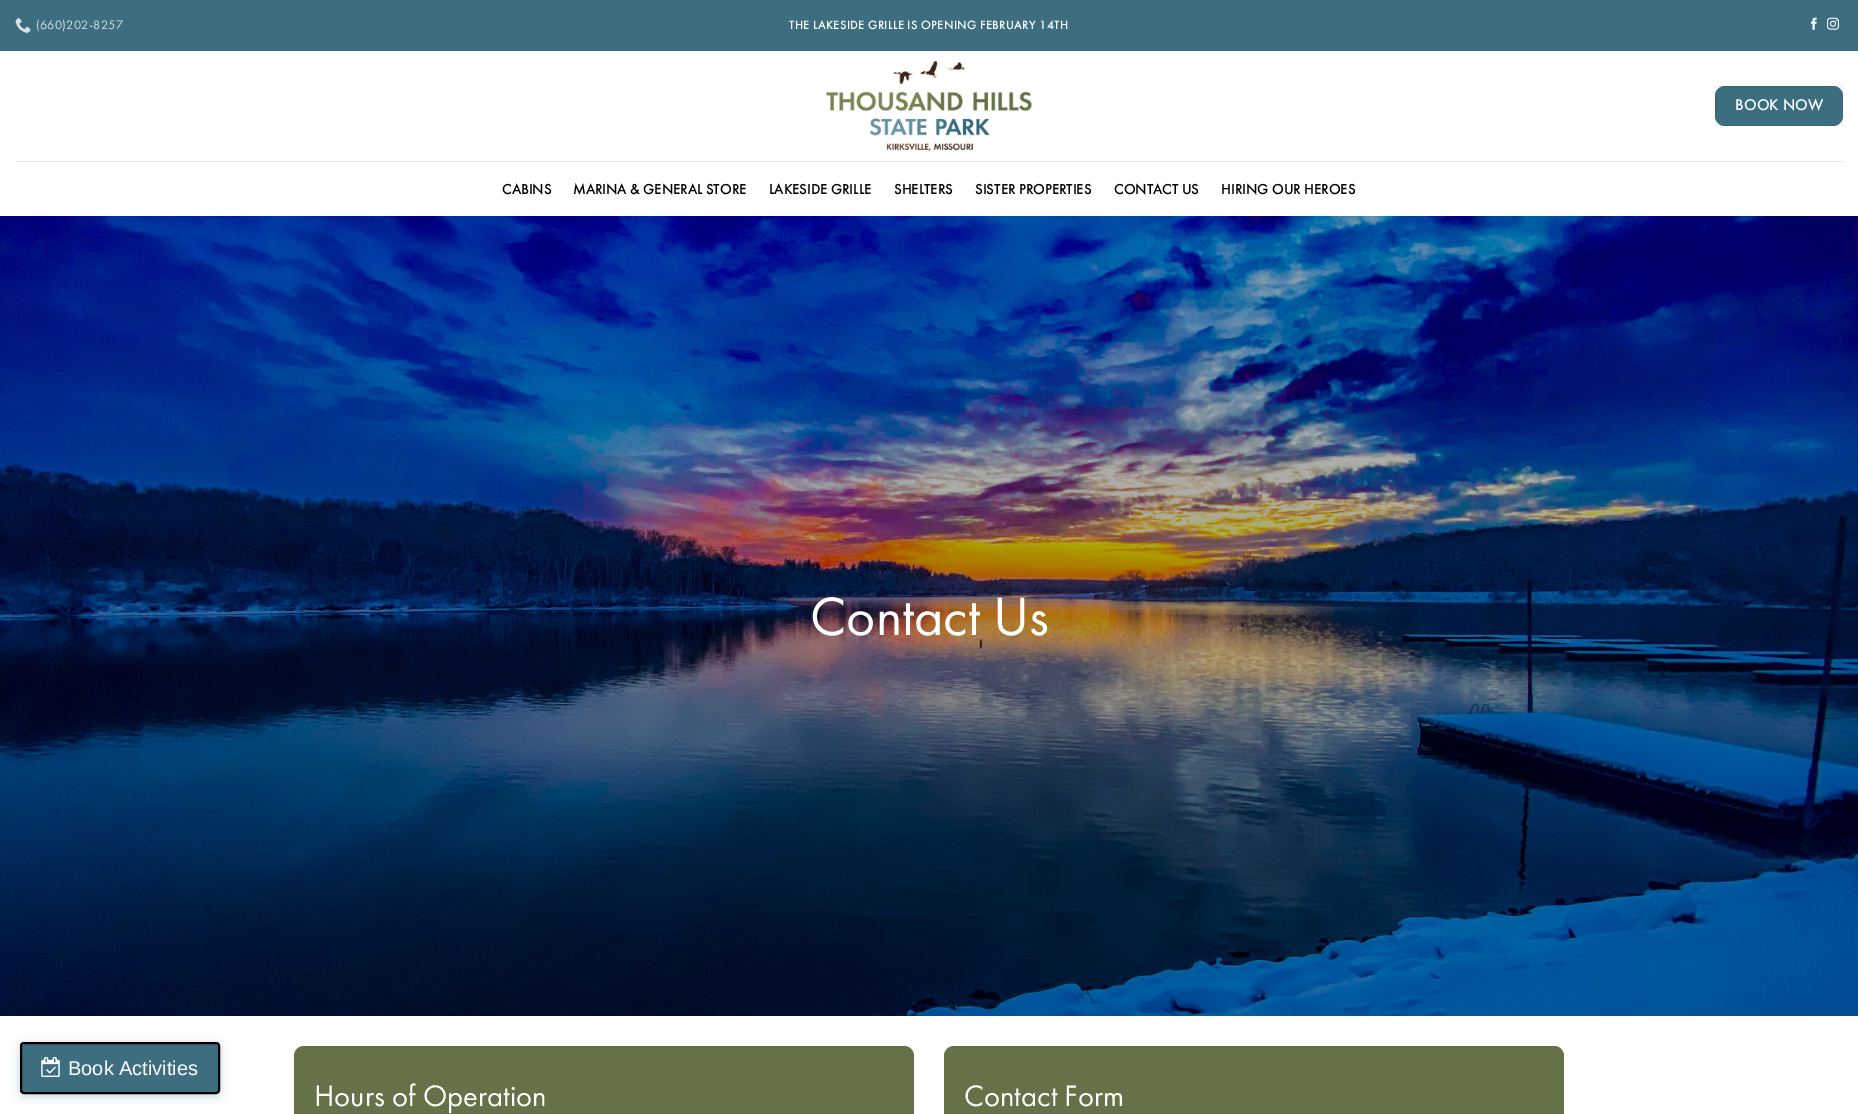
%!PS
<< /PageSize [1858 1114] /PageUsesTransparency true >> setpagedevice
/rgb { dup -16 bitshift 255 div exch dup -8 bitshift 255 and 255 div exch 255 and 255 div setrgbcolor } def
/font { [ exch dup neg 0 0 3 -1 roll 0 0 ] selectfont } def
/text { moveto show } def
/alpha { dup .setfillconstantalpha .setstrokeconstantalpha } def
/roundrect { 5 dict begin { /r /h /w /y /x } { exch def } forall
  x r add y moveto x w add y 2 copy h add r arct x w add y h add x 1 index r arct
  x y h add x y r arct x y 2 copy exch w add exch r arct closepath end } def
/shadow { 12 dict begin { /a /b /q /h /w /y /x } { exch def } forall gsave /was 0 def
  9 -2 -9 { dup b mul 4 div /e exch def 1 sub .425 mul 2.718 exch exp 1 add a .99 .min exch div /now exch def
    1 1 now sub 1 was sub div sub alpha /was now def
    w h .min e 2 mul add 0 gt { x e sub y e sub w e 2 mul add h e 2 mul add
      q e add b .6 mul add w h .min 2 div e add .min 0 .max roundrect fill } if } for grestore end } def
/picture { 5 dict begin { /h /w /y /x /name } { exch def } forall
  gsave x y translate w h scale
  w h 8 [w 0 0 h 0 0] name (r) file false 3 colorimage grestore end } def
0 .pushpdf14devicefilter
0 1114 translate 1 -1 scale
4 setmiterlimit
/s1 { /FuturaPT-Regular 56 font 16#FFFFFF rgb } def
/s2 { /FuturaPT-Regular 30.75 font 16#FFFFFF rgb } def
/s3 { /LiberationSans-Regular 20 font 16#FFFFFF rgb } def
16#FFFFFF rgb
0 0 1858 1114 rectfill
16#3C6E80 rgb
0 0 1858 51 rectfill
(pic1.raw) 15 18 16 15 picture
/FuturaPT-Regular 12.75 font
16#D8E2E6 rgb
36 29 moveto 0.25 0 (\(660\)202-8257) ashow
/FuturaPT-Bold 12 font
16#FFFFFF rgb
789 29 moveto 0.6 0 (THE LAKESIDE GRILLE IS OPENING FEBRUARY 14TH) ashow
(pic2.raw) 1811 17 6 13 picture
(pic3.raw) 1827 17 12 13 picture
(pic4.raw) 825 60 207 92 picture
16#3C6E80 rgb
1715 86 128 40 10 roundrect fill
0.05 alpha
16#000000 rgb
1715.5 86.5 127 39 rectstroke
/FuturaPT-Bold 15.5 font
1 alpha
16#FFFFFF rgb
1735 110 moveto 0.5 0 (BOOK NOW) ashow
16#E6E6E6 rgb
15 161 1828 1 rectfill
/FuturaPT-Bold 14.4 font
16#000000 rgb
502 194 moveto 0.25 0 (CABINS) ashow
573 194 moveto 0.25 0 (MARINA & GENERAL STORE) ashow
769 194 moveto 0.25 0 (LAKESIDE GRILLE) ashow
894 194 moveto 0.25 0 (SHELTERS) ashow
975 194 moveto 0.25 0 (SISTER PROPERTIES) ashow
1114 194 moveto 0.25 0 (CONTACT US) ashow
1221 194 moveto 0.25 0 (HIRING OUR HEROES) ashow
(pic5.raw) 0 216 1858 800 picture
s1
(Contact Us) 810 635 text
16#657247 rgb
294 1046 620 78 10 roundrect fill
s2
(Hours of Operation) 314 1106 text
16#657247 rgb
944 1046 620 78 10 roundrect fill
s2
(Contact Form) 964 1106 text
16#3C6E80 rgb
20 1044 200 52 4 5 0.3 shadow
21 1043 198 50 3 roundrect gsave fill grestore
16#000000 rgb
2 setlinewidth
stroke
(pic6.raw) 41 1057 19 20 picture
s3
(Book Activities) 68 1075 text
.poppdf14devicefilter showpage
